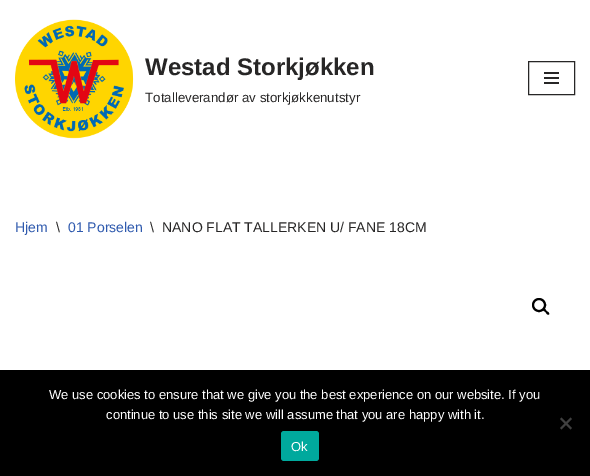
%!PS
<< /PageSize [590 476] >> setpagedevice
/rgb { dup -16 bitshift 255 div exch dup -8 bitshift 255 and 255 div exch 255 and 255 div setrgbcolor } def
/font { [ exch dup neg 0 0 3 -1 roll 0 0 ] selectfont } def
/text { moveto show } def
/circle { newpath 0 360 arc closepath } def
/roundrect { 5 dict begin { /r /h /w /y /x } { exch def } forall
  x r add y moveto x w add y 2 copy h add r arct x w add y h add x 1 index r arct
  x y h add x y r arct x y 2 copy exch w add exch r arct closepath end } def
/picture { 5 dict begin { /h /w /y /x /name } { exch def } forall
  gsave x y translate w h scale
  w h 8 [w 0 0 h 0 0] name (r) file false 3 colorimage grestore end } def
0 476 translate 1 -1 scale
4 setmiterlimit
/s1 { /LiberationSans-Bold 24 font 16#272626 rgb } def
/s2 { /LiberationSans-Regular 13.3 font 16#272626 rgb } def
/s3 { /LiberationSans-Regular 14 font 16#2F5AAE rgb } def
/s4 { /LiberationSans-Regular 14 font 16#272626 rgb } def
/s5 { /LiberationSans-Regular 13 font 16#FFFFFF rgb } def
16#FFFFFF rgb
0 0 590 476 rectfill
(pic1.raw) 15 19 119 120 picture
s1
(Westad Storkjøkken) 145 75 text
s2
(Totalleverandør av storkjøkkenutstyr) 145 102 text
528.5 61.5 46 33 rectstroke
544 72 15 2 rectfill
544 77 15 2 rectfill
544 82 15 2 rectfill
s3
(Hjem) 15 232 text
s4
(\\) 56 232 text
s3
(01 Porselen) 68 232 text
s4
(\\) 150 232 text
(NANO FLAT TALLERKEN U/ FANE 18CM) 162 232 text
16#000000 rgb
2 setlinewidth
539 305 6 circle stroke
543 308.5 moveto 544.5 307.5 546 310 546.5 311 curveto 547.5 311.5 550 313 549 314.5 curveto 547.5 315.5 546 313 545.5 312 curveto 544.5 311.5 542 310 543 308.5 curveto closepath fill
0 370 590 106 rectfill
s5
(We use cookies to ensure that we give you the best experience on our website. If you) 49 399 text
(continue to use this site we will assume that you are happy with it.) 106 419 text
16#404040 rgb
570.5 417.5 moveto 572 419 lineto 561.5 429.5 lineto 560 428 lineto closepath fill
560 419 moveto 561.5 417.5 lineto 572 428 lineto 570.5 429.5 lineto closepath fill
16#00A99D rgb
281 431 38 30 3 roundrect fill
s5
(Ok) 291 451 text
showpage
